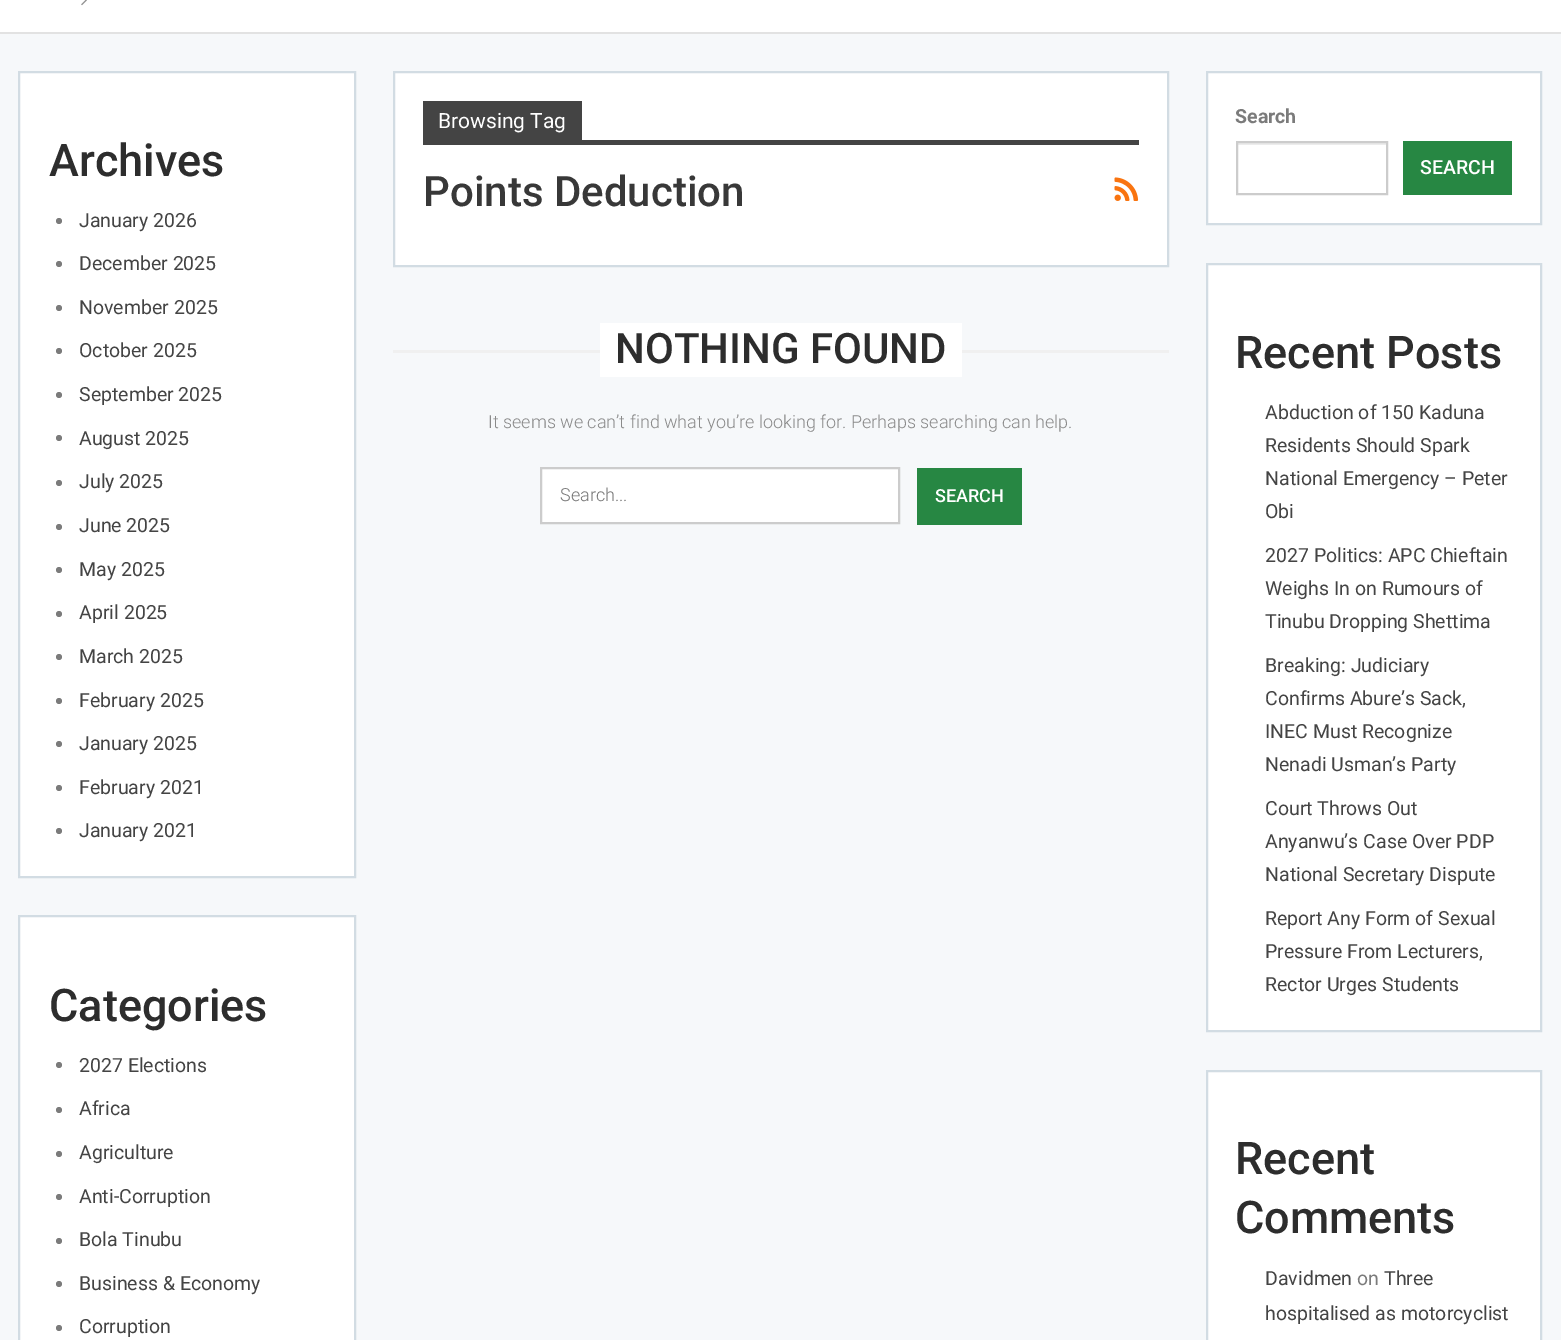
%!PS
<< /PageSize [1561 1340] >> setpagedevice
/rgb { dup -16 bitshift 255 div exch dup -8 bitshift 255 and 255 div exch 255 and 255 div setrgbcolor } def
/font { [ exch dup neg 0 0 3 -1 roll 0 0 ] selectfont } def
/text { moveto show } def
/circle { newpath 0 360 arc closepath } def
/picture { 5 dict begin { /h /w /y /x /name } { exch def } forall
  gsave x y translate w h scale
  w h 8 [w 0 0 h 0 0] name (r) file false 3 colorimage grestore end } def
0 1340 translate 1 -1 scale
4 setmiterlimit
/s1 { /Roboto-Medium 45 font 16#2D2D2D rgb } def
/s2 { /Roboto-Regular 19.5 font 16#444444 rgb } def
/s3 { /Roboto-Regular 21 font 16#FFFFFF rgb } def
/s4 { /Roboto-Medium 42 font 16#383838 rgb } def
/s5 { /Roboto-Medium 42 font 16#2D2D2D rgb } def
/s6 { /Roboto-Light 18 font 16#8A8A8A rgb } def
/s7 { /Roboto-Light 18 font 16#757575 rgb } def
/s8 { /Roboto-Medium 18 font 16#FFFFFF rgb } def
/s9 { /Roboto-Bold 19.5 font 16#7B7B7B rgb } def
/s10 { /Roboto-Medium 19.5 font 16#FFFFFF rgb } def
/s11 { /Roboto-Regular 19.5 font 16#7B7B7B rgb } def
16#F6F8FA rgb
0 0 1561 1340 rectfill
16#FFFFFF rgb
0 0 1561 32 rectfill
16#E2E2E2 rgb
0 32 1561 2 rectfill
(pic1.raw) 81 0 6 6 picture
16#FFFFFF rgb
19 72 moveto 355 72 lineto 355 877 lineto 19 877 lineto closepath gsave fill grestore
16#D2DCE3 rgb
2 setlinewidth
stroke
s1
(Archives) 49 176 text
16#7B7B7B rgb
59 221 3 circle fill
s2
(January 2026) 79 227 text
16#7B7B7B rgb
59 264 3 circle fill
s2
(December 2025) 79 270 text
16#7B7B7B rgb
59 308 3 circle fill
s2
(November 2025) 79 314 text
16#7B7B7B rgb
59 351 3 circle fill
s2
(October 2025) 79 357 text
16#7B7B7B rgb
59 395 3 circle fill
s2
(September 2025) 79 401 text
16#7B7B7B rgb
59 438 3 circle fill
s2
(August 2025) 79 445 text
16#7B7B7B rgb
59 483 3 circle fill
s2
(July 2025) 79 488 text
16#7B7B7B rgb
59 527 3 circle fill
s2
(June 2025) 79 532 text
16#7B7B7B rgb
59 570 3 circle fill
s2
(May 2025) 79 576 text
16#7B7B7B rgb
59 614 3 circle fill
s2
(April 2025) 79 619 text
16#7B7B7B rgb
59 657 3 circle fill
s2
(March 2025) 79 663 text
16#7B7B7B rgb
59 701 3 circle fill
s2
(February 2025) 79 707 text
16#7B7B7B rgb
59 744 3 circle fill
s2
(January 2025) 79 750 text
16#7B7B7B rgb
59 788 3 circle fill
s2
(February 2021) 79 794 text
16#7B7B7B rgb
59 831 3 circle fill
s2
(January 2021) 79 837 text
16#FFFFFF rgb
19 916 moveto 355 916 lineto 355 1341 lineto 19 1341 lineto closepath gsave fill grestore
16#D2DCE3 rgb
stroke
s1
(Categories) 49 1021 text
16#7B7B7B rgb
59 1065 3 circle fill
s2
(2027 Elections) 79 1072 text
16#7B7B7B rgb
59 1110 3 circle fill
s2
(Africa) 79 1115 text
16#7B7B7B rgb
59 1154 3 circle fill
s2
(Agriculture) 79 1159 text
16#7B7B7B rgb
59 1197 3 circle fill
s2
(Anti-Corruption) 79 1203 text
16#7B7B7B rgb
59 1241 3 circle fill
s2
(Bola Tinubu) 79 1246 text
16#7B7B7B rgb
59 1284 3 circle fill
s2
(Business & Economy) 79 1290 text
16#7B7B7B rgb
59 1328 3 circle fill
s2
(Corruption) 79 1333 text
16#FFFFFF rgb
394 72 moveto 1168 72 lineto 1168 266 lineto 394 266 lineto closepath gsave fill grestore
16#D2DCE3 rgb
stroke
16#444444 rgb
423 101 159 39 rectfill
s3
(Browsing Tag) 438 128 text
16#444444 rgb
423 140 716 5 rectfill
s4
(Points Deduction) 423 206 text
(pic2.raw) 1114 177 25 24 picture
16#F0F0F0 rgb
393 350 776 3 rectfill
16#FFFFFF rgb
600 323 362 54 rectfill
s5
(NOTHING FOUND) 615 363 text
s6
(It seems we can’t find what you’re looking for. Perhaps searching can help.) 488 428 text
16#FFFFFF rgb
541 468 moveto 899 468 lineto 899 523 lineto 541 523 lineto closepath gsave fill grestore
16#CCCCCC rgb
stroke
s7
(Search...) 560 501 text
16#278743 rgb
917 468 105 57 rectfill
s8
(SEARCH) 935 502 text
1207 72 moveto 1541 72 lineto 1541 224 lineto 1207 224 lineto closepath gsave fill grestore
16#D2DCE3 rgb
stroke
s9
(Search) 1235 123 text
16#ECECEC rgb
1238 143 148 2 rectfill
16#CCCCCC rgb
1237 142 150 52 rectstroke
16#278743 rgb
1403 141 109 54 rectfill
s10
(SEARCH) 1420 174 text
1207 264 moveto 1541 264 lineto 1541 1031 lineto 1207 1031 lineto closepath gsave fill grestore
16#D2DCE3 rgb
stroke
s1
(Recent Posts) 1235 368 text
s2
(Abduction of 150 Kaduna) 1265 419 text
(Residents Should Spark) 1265 452 text
(National Emergency – Peter) 1265 485 text
(Obi) 1265 518 text
(2027 Politics: APC Chieftain) 1265 562 text
(Weighs In on Rumours of) 1265 595 text
(Tinubu Dropping Shettima) 1265 628 text
(Breaking: Judiciary) 1265 672 text
(Confirms Abure’s Sack,) 1265 705 text
(INEC Must Recognize) 1265 738 text
(Nenadi Usman’s Party) 1265 771 text
(Court Throws Out) 1265 815 text
(Anyanwu’s Case Over PDP) 1265 848 text
(National Secretary Dispute) 1265 881 text
(Report Any Form of Sexual) 1265 925 text
(Pressure From Lecturers,) 1265 958 text
(Rector Urges Students) 1265 991 text
16#FFFFFF rgb
1207 1071 moveto 1541 1071 lineto 1541 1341 lineto 1207 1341 lineto closepath gsave fill grestore
16#D2DCE3 rgb
stroke
s1
(Recent) 1235 1174 text
(Comments) 1235 1233 text
s2
(Davidmen) 1265 1285 text
s11
(on) 1357 1285 text
s2
(Three) 1384 1285 text
(hospitalised as motorcyclist) 1265 1320 text
showpage
